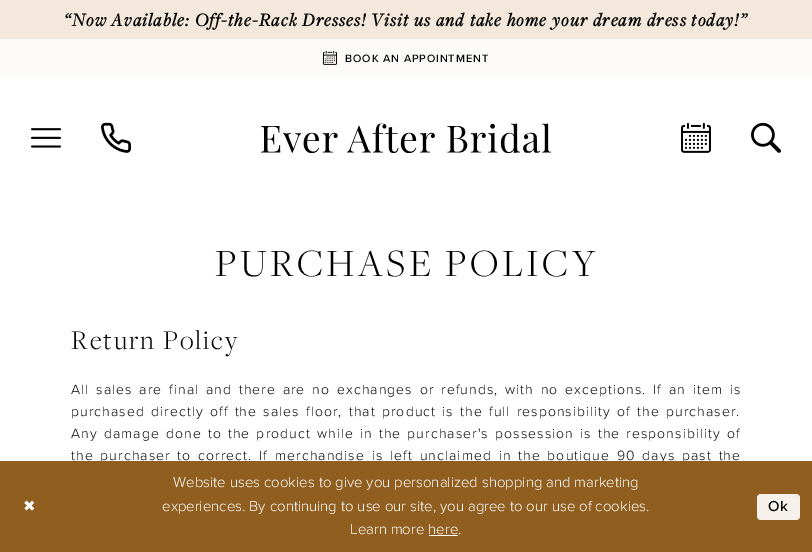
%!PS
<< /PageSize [812 552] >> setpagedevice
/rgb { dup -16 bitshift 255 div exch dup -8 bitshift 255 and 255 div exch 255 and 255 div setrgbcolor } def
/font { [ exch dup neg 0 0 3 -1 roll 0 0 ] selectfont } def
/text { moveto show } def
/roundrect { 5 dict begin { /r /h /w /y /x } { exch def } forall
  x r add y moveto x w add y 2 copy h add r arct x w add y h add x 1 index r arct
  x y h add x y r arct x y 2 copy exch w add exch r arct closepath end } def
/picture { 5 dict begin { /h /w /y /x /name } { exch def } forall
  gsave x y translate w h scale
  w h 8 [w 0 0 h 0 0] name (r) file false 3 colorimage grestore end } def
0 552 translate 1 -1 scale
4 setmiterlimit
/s1 { /ProximaNova-Light 15 font 16#FFFFFF rgb } def
16#FFFFFF rgb
0 0 812 552 rectfill
16#F3E8DB rgb
0 0 812 39 rectfill
/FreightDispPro-BoldItalic 19 font
16#000000 rgb
64 26 moveto 1.2 0 (“Now Available: Off-the-Rack Dresses! Visit us and take home your dream dress today!”) ashow
16#FCFAF8 rgb
0 39 812 38 rectfill
(pic1.raw) 323 50 14 15 picture
/ProximaNova-Medium 11 font
16#000000 rgb
345 62 moveto 0.9 0 (BOOK AN APPOINTMENT) ashow
(pic2.raw) 31 128 30 20 picture
(pic3.raw) 101 122 30 31 picture
(pic4.raw) 261 123 290 30 picture
(pic5.raw) 681 122 30 31 picture
(pic6.raw) 751 122 30 31 picture
/FreightDispPro-Light 40 font
215 276 moveto 3.5 0 (PURCHASE POLICY) ashow
/FreightDispPro-Light 28 font
71 349 moveto 2 0 (Return Policy) ashow
/ProximaNova-Light 14 font
71 394 moveto 2.1 0 32 1.08 0 (All sales are final and there are no exchanges or refunds, with no exceptions. If an item is) awidthshow
71 416 moveto 1.5 0 32 1.08 0 (purchased directly off the sales floor, that product is the full responsibility of the purchaser.) awidthshow
71 438 moveto 1.4 0 32 1.08 0 (Any damage done to the product while in the purchaser's possession is the responsibility of) awidthshow
71 460 moveto 2.1 0 32 1.08 0 (the purchaser to correct. If merchandise is left unclaimed in the boutique 90 days past the) awidthshow
16#905F1F rgb
0 461 812 91 rectfill
/DejaVuSans-Regular 15 font
16#FFFFFF rgb
23 511 moveto 1 0 (✖) ashow
s1
(Website uses cookies to give you personalized shopping and marketing) 173 487 text
(experiences. By continuing to use our site, you agree to our use of cookies.) 162 511 text
(Learn more here.) 350 534 text
429 535 29 1 rectfill
16#F6F2EB rgb
757 494 43 26 4 roundrect fill
/ProximaNova-Medium 15 font
16#000000 rgb
768 511 moveto 1 0 (Ok) ashow
showpage
